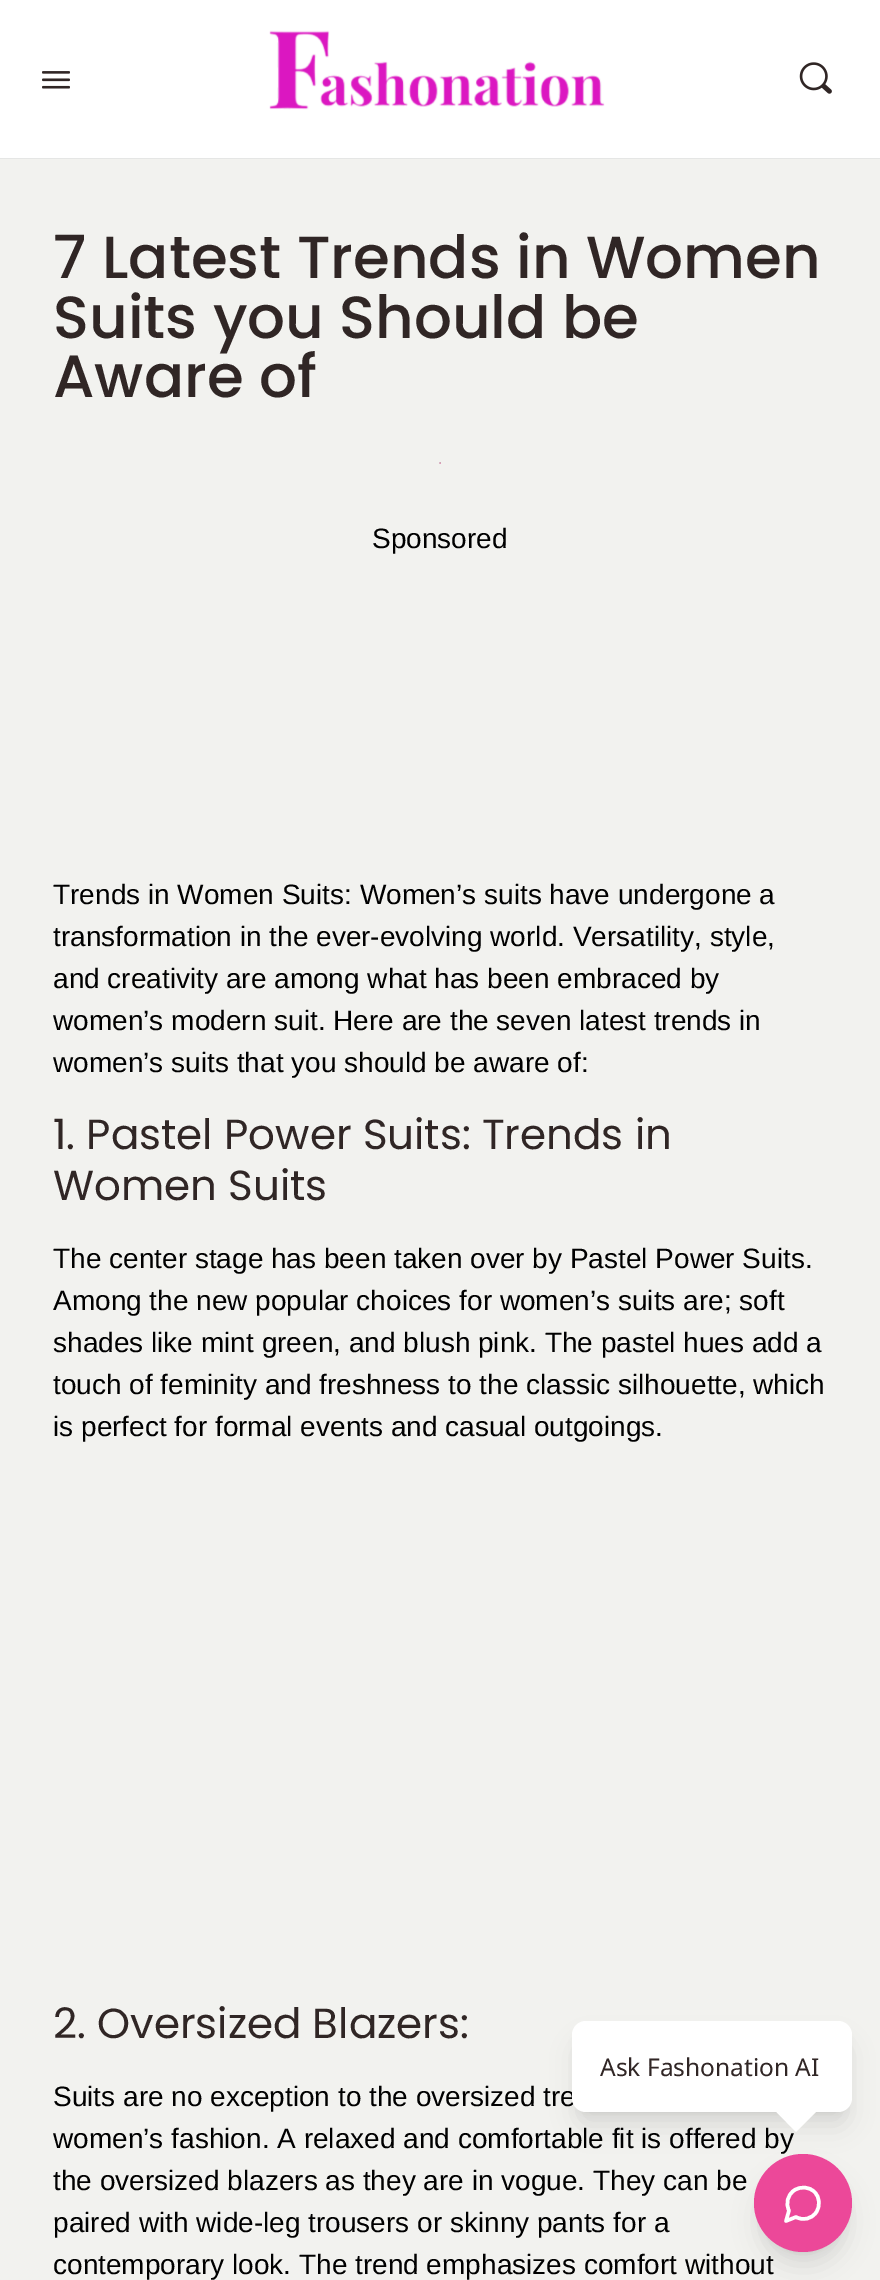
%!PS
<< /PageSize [880 2280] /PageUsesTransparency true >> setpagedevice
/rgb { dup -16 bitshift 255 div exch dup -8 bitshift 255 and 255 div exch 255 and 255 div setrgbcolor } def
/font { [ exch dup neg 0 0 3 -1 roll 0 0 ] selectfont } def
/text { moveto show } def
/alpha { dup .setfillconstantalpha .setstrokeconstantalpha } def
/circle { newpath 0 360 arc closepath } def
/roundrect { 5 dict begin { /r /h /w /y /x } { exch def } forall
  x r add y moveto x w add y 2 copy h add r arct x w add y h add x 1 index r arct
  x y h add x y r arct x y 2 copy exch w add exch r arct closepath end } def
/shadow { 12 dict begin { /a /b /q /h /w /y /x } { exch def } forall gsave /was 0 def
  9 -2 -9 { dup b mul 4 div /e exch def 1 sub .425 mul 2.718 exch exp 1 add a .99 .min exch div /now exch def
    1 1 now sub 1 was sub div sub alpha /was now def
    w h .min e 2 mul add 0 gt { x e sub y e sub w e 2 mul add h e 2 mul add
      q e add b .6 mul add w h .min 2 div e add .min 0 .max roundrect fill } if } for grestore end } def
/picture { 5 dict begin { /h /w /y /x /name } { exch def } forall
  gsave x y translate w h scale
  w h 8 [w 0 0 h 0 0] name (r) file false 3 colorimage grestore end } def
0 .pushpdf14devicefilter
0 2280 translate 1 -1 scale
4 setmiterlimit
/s1 { /Poppins-Medium 59.5 font 16#302625 rgb } def
/s2 { /LiberationSans-Regular 28 font 16#000000 rgb } def
/s3 { /Poppins-Regular 42 font 16#302625 rgb } def
/s4 { /NotoSans-Regular 24.5 font 16#302625 rgb } def
16#F2F2EF rgb
0 0 880 2280 rectfill
16#E5E6E5 rgb
0 158 880 1 rectfill
16#FFFFFF rgb
0 0 880 158 rectfill
(pic1.raw) 42 71 28 18 picture
(pic2.raw) 269 30 336 80 picture
(pic3.raw) 799 62 33 32 picture
s1
(7 Latest Trends in Women) 53 278 text
(Suits you Should be) 53 338 text
(Aware of) 53 397 text
(pic4.raw) 439 462 2 2 picture
s2
(Sponsored) 372 548 text
(Trends in Women Suits: Women’s suits have undergone a) 53 904 text
(transformation in the ever-evolving world. Versatility, style,) 53 946 text
(and creativity are among what has been embraced by) 53 988 text
(women’s modern suit. Here are the seven latest trends in) 53 1030 text
(women’s suits that you should be aware of:) 53 1072 text
s3
(1. Pastel Power Suits: Trends in) 53 1149 text
(Women Suits) 53 1200 text
s2
(The center stage has been taken over by Pastel Power Suits.) 53 1268 text
(Among the new popular choices for women’s suits are; soft) 53 1310 text
(shades like mint green, and blush pink. The pastel hues add a) 53 1352 text
(touch of feminity and freshness to the classic silhouette, which) 53 1394 text
(is perfect for formal events and casual outgoings.) 53 1436 text
s3
(2. Oversized Blazers:) 53 2038 text
s2
(Suits are no exception to the oversized tre) 53 2106 text
(women’s fashion. A relaxed and comfortable fit is offered by) 53 2148 text
(the oversized blazers as they are in vogue. They can be) 53 2190 text
(paired with wide-leg trousers or skinny pants for a) 53 2232 text
(contemporary look. The trend emphasizes comfort without) 53 2274 text
579 2035 266 77 7 5 0.1 shadow
761 2168 84 84 42 5 0.1 shadow
760 2177 87 88 43.5 13 0.1 shadow
16#EC4899 rgb
803 2203 49 circle fill
16#000000 rgb
578 2044 269 81 9 13 0.1 shadow
16#FFFFFF rgb
572 2021 280 91 14 roundrect fill
s4
(Ask Fashonation AI) 600 2076 text
16#FFFFFF rgb
796 2092.5 moveto 816 2112 lineto 796 2132 lineto 776.5 2112 lineto closepath fill
3.5 setlinewidth
1 setlinecap
1 setlinejoin
796 2217 moveto 803 2221 811.5 2219 816 2212.5 curveto 820.5 2206 820 2197.5 814.5 2192 curveto 809 2186.5 800.5 2186 794 2190.5 curveto 787.5 2195 785.5 2203.5 789 2210.5 curveto 786 2221 lineto closepath stroke
.poppdf14devicefilter showpage
